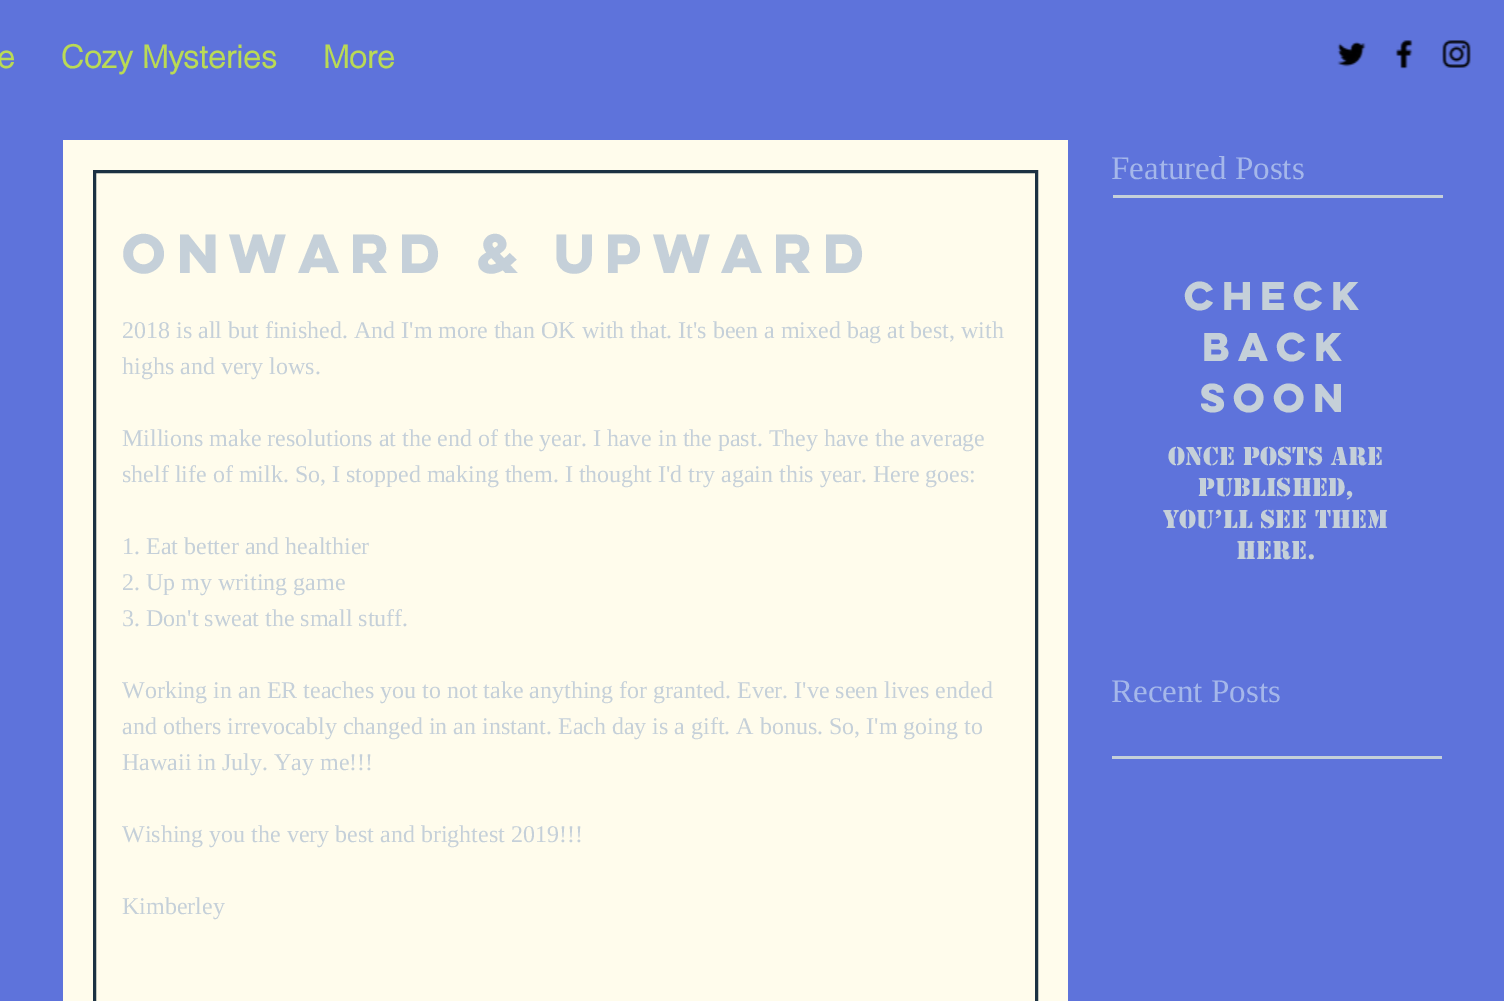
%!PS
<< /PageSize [1504 1001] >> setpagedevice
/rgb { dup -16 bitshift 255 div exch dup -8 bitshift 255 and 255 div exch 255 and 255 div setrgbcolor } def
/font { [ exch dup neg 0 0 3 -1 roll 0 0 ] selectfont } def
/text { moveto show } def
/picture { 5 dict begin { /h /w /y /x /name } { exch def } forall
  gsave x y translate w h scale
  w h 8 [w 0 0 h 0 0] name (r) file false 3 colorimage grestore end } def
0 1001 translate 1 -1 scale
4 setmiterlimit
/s1 { /helvetica-Bold 31.5 font 16#BADA55 rgb } def
/s2 { /LiberationSerif-Regular 33 font 16#A5B7EA rgb } def
/s3 { /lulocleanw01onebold-Bold 49.5 font 16#C5D0D9 rgb } def
/s4 { /LiberationSerif-Regular 24 font 16#C5D0D9 rgb } def
/s5 { /lulocleanw01onebold-Bold 36 font 16#C5D0D9 rgb } def
/s6 { /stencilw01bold-Bold 24 font 16#C5D0D9 rgb } def
16#5E73DB rgb
0 0 1504 1001 rectfill
s1
(e) -3 68 text
(Cozy Mysteries) 61 68 text
(More) 323 68 text
(pic1.raw) 1337 41 29 26 picture
(pic2.raw) 1395 40 18 29 picture
(pic3.raw) 1442 40 29 28 picture
s2
(Featured Posts) 1111 179 text
16#C5D0D9 rgb
1113 195 330 3 rectfill
16#FFFCEC rgb
63 140 1005 861 rectfill
16#1C3142 rgb
3 setlinewidth
94.5 171.5 942 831 rectstroke
s3
(Onward & Upward) 122 273 text
s4
(2018 is all but finished. And I'm more than OK with that. It's been a mixed bag at best, with) 122 338 text
(highs and very lows.) 122 374 text
(Millions make resolutions at the end of the year. I have in the past. They have the average) 122 446 text
(shelf life of milk. So, I stopped making them. I thought I'd try again this year. Here goes:) 122 482 text
(1. Eat better and healthier) 122 554 text
(2. Up my writing game) 122 590 text
(3. Don't sweat the small stuff.) 122 626 text
(Working in an ER teaches you to not take anything for granted. Ever. I've seen lives ended) 122 698 text
(and others irrevocably changed in an instant. Each day is a gift. A bonus. So, I'm going to) 122 734 text
(Hawaii in July. Yay me!!!) 122 770 text
(Wishing you the very best and brightest 2019!!!) 122 842 text
(Kimberley) 122 914 text
s5
(Check) 1184 310 text
(back) 1202 361 text
(soon) 1200 412 text
s6
(Once posts are) 1168 465 text
(published,) 1198 496 text
(you’ll see them) 1163 528 text
(here.) 1236 559 text
s2
(Recent Posts) 1111 702 text
16#C5D0D9 rgb
1112 756 330 3 rectfill
showpage
